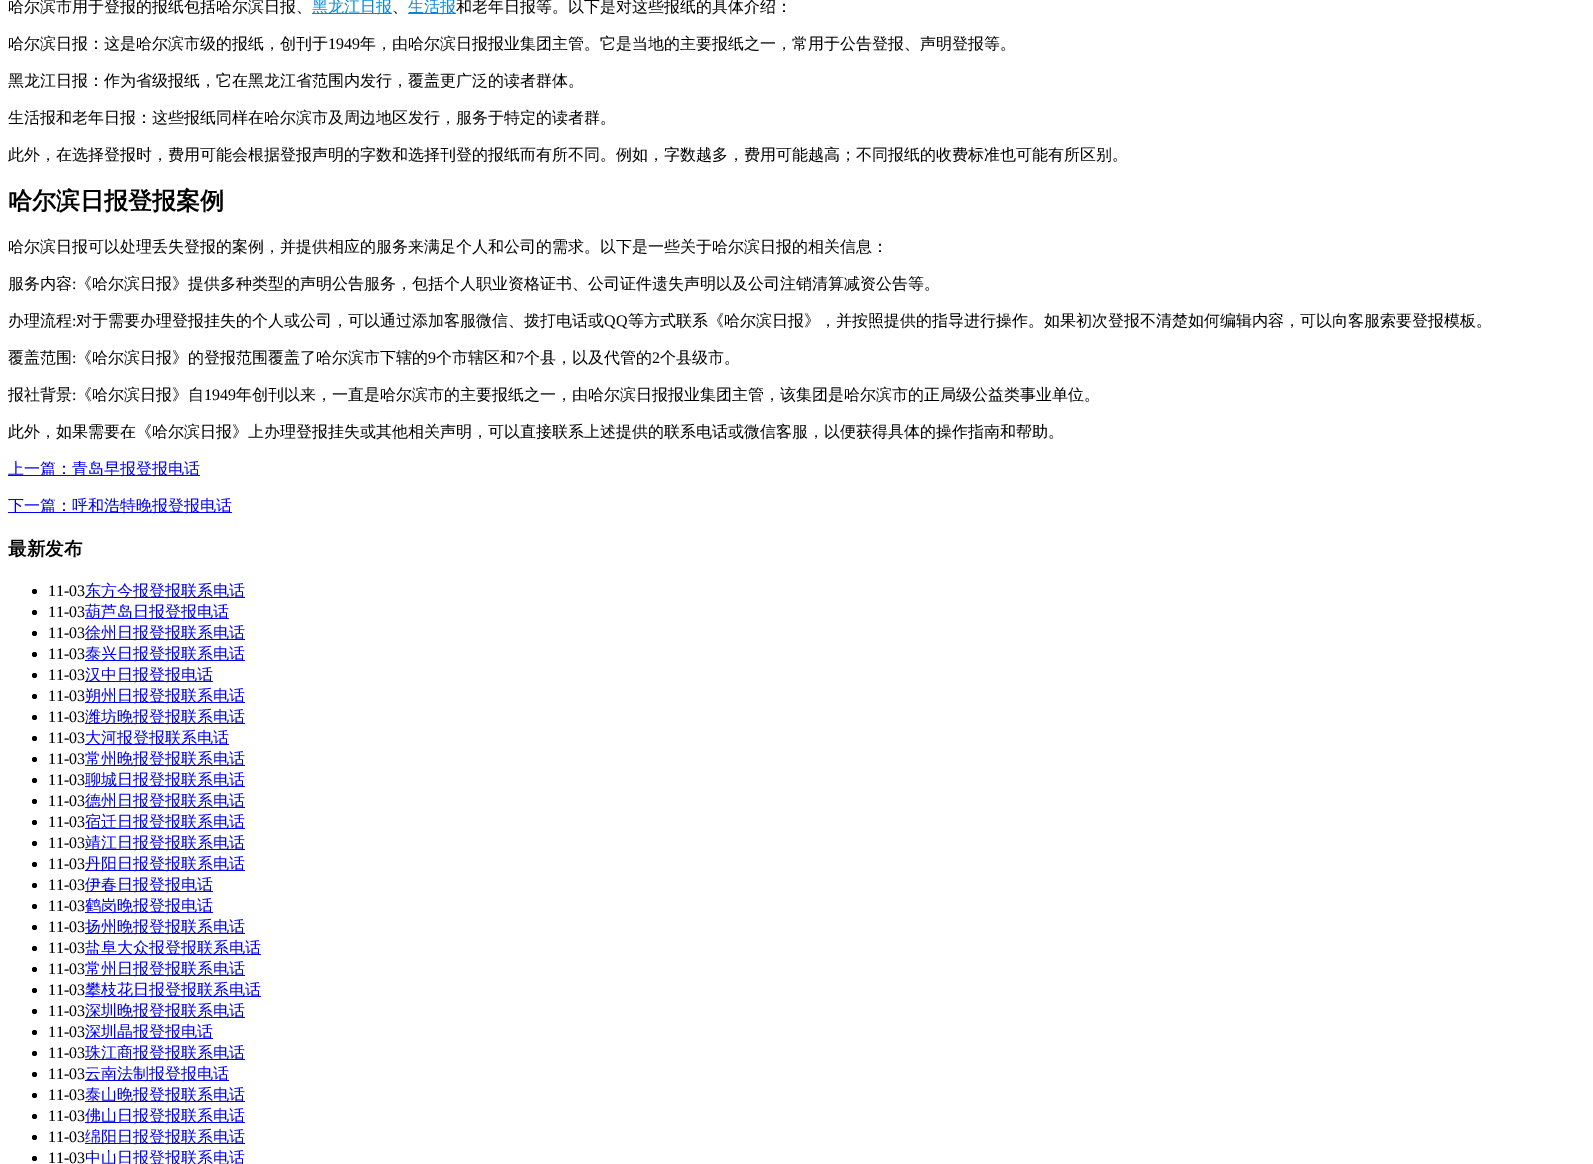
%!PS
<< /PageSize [1593 1164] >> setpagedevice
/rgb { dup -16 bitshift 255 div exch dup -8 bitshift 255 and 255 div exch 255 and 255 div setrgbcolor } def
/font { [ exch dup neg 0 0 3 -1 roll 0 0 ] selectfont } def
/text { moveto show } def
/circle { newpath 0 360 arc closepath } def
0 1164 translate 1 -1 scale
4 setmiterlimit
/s1 { /WenQuanYiZenHei-Medium 16 font 16#000000 rgb } def
/s2 { /WenQuanYiZenHei-Medium 16 font 16#0086E3 rgb } def
/s3 { /LiberationSerif-Regular 16 font 16#000000 rgb } def
/s4 { /WenQuanYiZenHei-Bold 24 font 16#000000 rgb } def
/s5 { /WenQuanYiZenHei-Medium 16 font 16#0000EE rgb } def
/s6 { /WenQuanYiZenHei-Bold 18.5 font 16#000000 rgb } def
16#FFFFFF rgb
0 0 1593 1164 rectfill
s1
(哈尔滨市用于登报的报纸包括哈尔滨日报、) 8 12 text
16#0086E3 rgb
312 13 80 1 rectfill
(黑龙江日报) 312 12 text
s1
(、) 392 12 text
16#0086E3 rgb
408 13 48 1 rectfill
(生活报) 408 12 text
s1
(和老年日报等。以下是对这些报纸的具体介绍：) 456 12 text
(哈尔滨日报：这是哈尔滨市级的报纸，创刊于) 8 49 text
s3
(1949) 328 49 text
s1
(年，由哈尔滨日报报业集团主管。它是当地的主要报纸之一，常用于公告登报、声明登报等。) 360 49 text
(黑龙江日报：作为省级报纸，它在黑龙江省范围内发行，覆盖更广泛的读者群体。) 8 86 text
(生活报和老年日报：这些报纸同样在哈尔滨市及周边地区发行，服务于特定的读者群。) 8 123 text
(此外，在选择登报时，费用可能会根据登报声明的字数和选择刊登的报纸而有所不同。例如，字数越多，费用可能越高；不同报纸的收费标准也可能有所区别。) 8 160 text
s4
(哈尔滨日报登报案例) 8 209 text
s1
(哈尔滨日报可以处理丢失登报的案例，并提供相应的服务来满足个人和公司的需求。以下是一些关于哈尔滨日报的相关信息：) 8 252 text
(服务内容) 8 289 text
s3
(:) 72 289 text
s1
(《哈尔滨日报》提供多种类型的声明公告服务，包括个人职业资格证书、公司证件遗失声明以及公司注销清算减资公告等。) 76 289 text
(办理流程) 8 326 text
s3
(:) 72 326 text
s1
(对于需要办理登报挂失的个人或公司，可以通过添加客服微信、拨打电话或) 76 326 text
s3
(QQ) 604 326 text
s1
(等方式联系《哈尔滨日报》，并按照提供的指导进行操作。如果初次登报不清楚如何编辑内容，可以向客服索要登报模板。) 628 326 text
(覆盖范围) 8 363 text
s3
(:) 72 363 text
s1
(《哈尔滨日报》的登报范围覆盖了哈尔滨市下辖的) 76 363 text
s3
(9) 428 363 text
s1
(个市辖区和) 436 363 text
s3
(7) 516 363 text
s1
(个县，以及代管的) 524 363 text
s3
(2) 652 363 text
s1
(个县级市。) 660 363 text
(报社背景) 8 400 text
s3
(:) 72 400 text
s1
(《哈尔滨日报》自) 76 400 text
s3
(1949) 204 400 text
s1
(年创刊以来，一直是哈尔滨市的主要报纸之一，由哈尔滨日报报业集团主管，该集团是哈尔滨市的正局级公益类事业单位。) 236 400 text
(此外，如果需要在《哈尔滨日报》上办理登报挂失或其他相关声明，可以直接联系上述提供的联系电话或微信客服，以便获得具体的操作指南和帮助。) 8 437 text
16#0000EE rgb
8 475 192 1 rectfill
(上一篇：青岛早报登报电话) 8 474 text
8 512 224 1 rectfill
(下一篇：呼和浩特晚报登报电话) 8 511 text
s6
(最新发布) 8 555 text
34.5 591.5 2.5 circle fill
s3
(11-03) 48 596 text
16#0000EE rgb
85 597 160 1 rectfill
s5
(东方今报登报联系电话) 85 596 text
16#000000 rgb
34.5 612.5 2.5 circle fill
s3
(11-03) 48 617 text
16#0000EE rgb
85 618 144 1 rectfill
s5
(葫芦岛日报登报电话) 85 617 text
16#000000 rgb
34.5 633.5 2.5 circle fill
s3
(11-03) 48 638 text
16#0000EE rgb
85 639 160 1 rectfill
s5
(徐州日报登报联系电话) 85 638 text
16#000000 rgb
34.5 654.5 2.5 circle fill
s3
(11-03) 48 659 text
16#0000EE rgb
85 660 160 1 rectfill
s5
(泰兴日报登报联系电话) 85 659 text
16#000000 rgb
34.5 675.5 2.5 circle fill
s3
(11-03) 48 680 text
16#0000EE rgb
85 681 128 1 rectfill
s5
(汉中日报登报电话) 85 680 text
16#000000 rgb
34.5 696.5 2.5 circle fill
s3
(11-03) 48 701 text
16#0000EE rgb
85 702 160 1 rectfill
s5
(朔州日报登报联系电话) 85 701 text
16#000000 rgb
34.5 717.5 2.5 circle fill
s3
(11-03) 48 722 text
16#0000EE rgb
85 723 160 1 rectfill
s5
(潍坊晚报登报联系电话) 85 722 text
16#000000 rgb
34.5 738.5 2.5 circle fill
s3
(11-03) 48 743 text
16#0000EE rgb
85 744 144 1 rectfill
s5
(大河报登报联系电话) 85 743 text
16#000000 rgb
34.5 759.5 2.5 circle fill
s3
(11-03) 48 764 text
16#0000EE rgb
85 765 160 1 rectfill
s5
(常州晚报登报联系电话) 85 764 text
16#000000 rgb
34.5 780.5 2.5 circle fill
s3
(11-03) 48 785 text
16#0000EE rgb
85 786 160 1 rectfill
s5
(聊城日报登报联系电话) 85 785 text
16#000000 rgb
34.5 801.5 2.5 circle fill
s3
(11-03) 48 806 text
16#0000EE rgb
85 807 160 1 rectfill
s5
(德州日报登报联系电话) 85 806 text
16#000000 rgb
34.5 822.5 2.5 circle fill
s3
(11-03) 48 827 text
16#0000EE rgb
85 828 160 1 rectfill
s5
(宿迁日报登报联系电话) 85 827 text
16#000000 rgb
34.5 843.5 2.5 circle fill
s3
(11-03) 48 848 text
16#0000EE rgb
85 849 160 1 rectfill
s5
(靖江日报登报联系电话) 85 848 text
16#000000 rgb
34.5 864.5 2.5 circle fill
s3
(11-03) 48 869 text
16#0000EE rgb
85 870 160 1 rectfill
s5
(丹阳日报登报联系电话) 85 869 text
16#000000 rgb
34.5 885.5 2.5 circle fill
s3
(11-03) 48 890 text
16#0000EE rgb
85 891 128 1 rectfill
s5
(伊春日报登报电话) 85 890 text
16#000000 rgb
34.5 906.5 2.5 circle fill
s3
(11-03) 48 911 text
16#0000EE rgb
85 912 128 1 rectfill
s5
(鹤岗晚报登报电话) 85 911 text
16#000000 rgb
34.5 927.5 2.5 circle fill
s3
(11-03) 48 932 text
16#0000EE rgb
85 933 160 1 rectfill
s5
(扬州晚报登报联系电话) 85 932 text
16#000000 rgb
34.5 948.5 2.5 circle fill
s3
(11-03) 48 953 text
16#0000EE rgb
85 954 176 1 rectfill
s5
(盐阜大众报登报联系电话) 85 953 text
16#000000 rgb
34.5 969.5 2.5 circle fill
s3
(11-03) 48 974 text
16#0000EE rgb
85 975 160 1 rectfill
s5
(常州日报登报联系电话) 85 974 text
16#000000 rgb
34.5 990.5 2.5 circle fill
s3
(11-03) 48 995 text
16#0000EE rgb
85 996 176 1 rectfill
s5
(攀枝花日报登报联系电话) 85 995 text
16#000000 rgb
34.5 1011.5 2.5 circle fill
s3
(11-03) 48 1016 text
16#0000EE rgb
85 1017 160 1 rectfill
s5
(深圳晚报登报联系电话) 85 1016 text
16#000000 rgb
34.5 1032.5 2.5 circle fill
s3
(11-03) 48 1037 text
16#0000EE rgb
85 1038 128 1 rectfill
s5
(深圳晶报登报电话) 85 1037 text
16#000000 rgb
34.5 1053.5 2.5 circle fill
s3
(11-03) 48 1058 text
16#0000EE rgb
85 1059 160 1 rectfill
s5
(珠江商报登报联系电话) 85 1058 text
16#000000 rgb
34.5 1074.5 2.5 circle fill
s3
(11-03) 48 1079 text
16#0000EE rgb
85 1080 144 1 rectfill
s5
(云南法制报登报电话) 85 1079 text
16#000000 rgb
34.5 1095.5 2.5 circle fill
s3
(11-03) 48 1100 text
16#0000EE rgb
85 1101 160 1 rectfill
s5
(泰山晚报登报联系电话) 85 1100 text
16#000000 rgb
34.5 1116.5 2.5 circle fill
s3
(11-03) 48 1121 text
16#0000EE rgb
85 1122 160 1 rectfill
s5
(佛山日报登报联系电话) 85 1121 text
16#000000 rgb
34.5 1137.5 2.5 circle fill
s3
(11-03) 48 1142 text
16#0000EE rgb
85 1143 160 1 rectfill
s5
(绵阳日报登报联系电话) 85 1142 text
16#000000 rgb
34.5 1158.5 2.5 circle fill
s3
(11-03) 48 1163 text
s5
(中山日报登报联系电话) 85 1163 text
showpage
